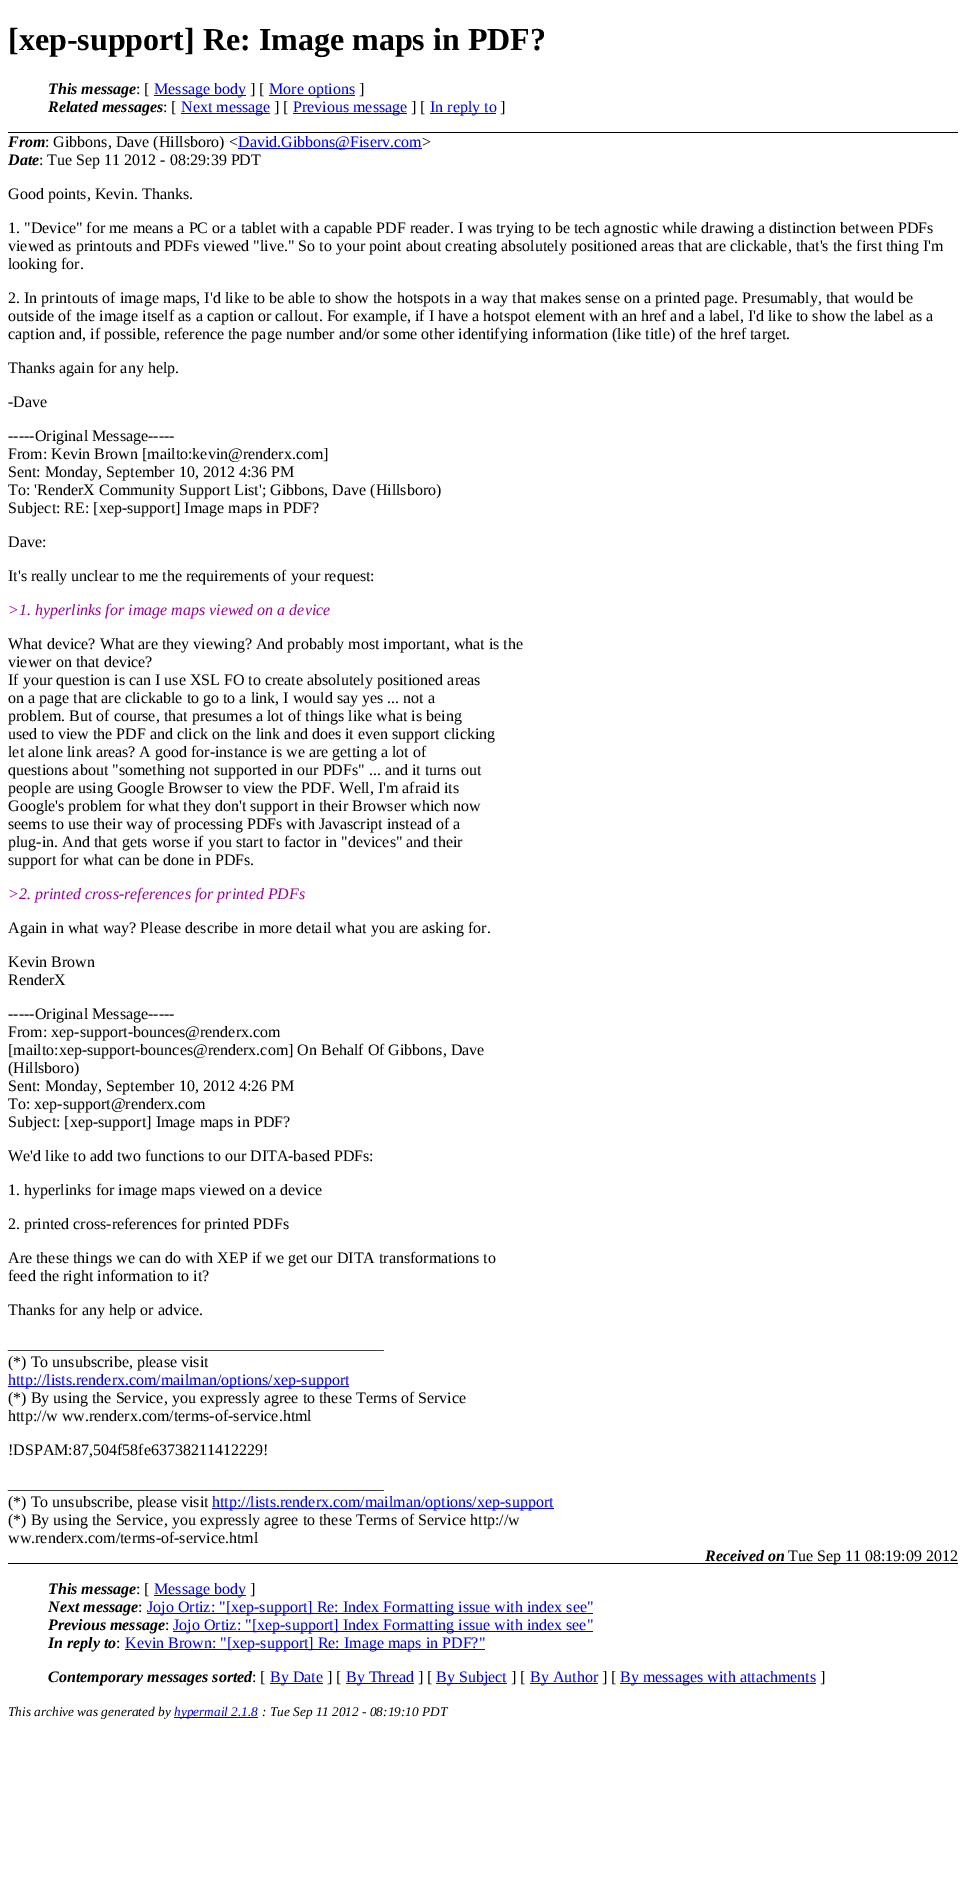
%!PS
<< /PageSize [966 1895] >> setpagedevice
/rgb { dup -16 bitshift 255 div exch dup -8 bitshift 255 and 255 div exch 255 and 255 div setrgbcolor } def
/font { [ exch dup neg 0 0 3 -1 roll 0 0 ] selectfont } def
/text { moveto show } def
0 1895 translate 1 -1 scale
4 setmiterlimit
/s1 { /LiberationSerif-Bold 32 font 16#000000 rgb } def
/s2 { /LiberationSerif-BoldItalic 16 font 16#000000 rgb } def
/s3 { /LiberationSerif-Regular 16 font 16#000000 rgb } def
/s4 { /LiberationSerif-Regular 16 font 16#0000EE rgb } def
/s5 { /LiberationSerif-Italic 16 font 16#990099 rgb } def
/s6 { /LiberationSerif-Italic 13.3 font 16#000000 rgb } def
/s7 { /LiberationSerif-Italic 13.3 font 16#0000EE rgb } def
16#FFFFFF rgb
0 0 966 1895 rectfill
16#000000 rgb
8 132 950 1 rectfill
s1
([xep-support] Re: Image maps in PDF?) 8 50 text
s2
(This message) 48 94 text
s3
(: [) 136 94 text
16#0000EE rgb
154 95 92 1 rectfill
(Message body) 154 94 text
s3
(] [) 250 94 text
16#0000EE rgb
269 95 86 1 rectfill
(More options) 269 94 text
s3
(]) 359 94 text
s2
(Related messages) 48 112 text
s3
(: [) 163 112 text
16#0000EE rgb
181 113 89 1 rectfill
(Next message) 181 112 text
s3
(] [) 274 112 text
16#0000EE rgb
293 113 114 1 rectfill
(Previous message) 293 112 text
s3
(] [) 411 112 text
16#0000EE rgb
430 113 66 1 rectfill
(In reply to) 430 112 text
s3
(]) 500 112 text
s2
(From) 8 147 text
s3
(: Gibbons, Dave \(Hillsboro\) <) 45 147 text
16#0000EE rgb
238 148 184 1 rectfill
(David.Gibbons@Fiserv.com) 238 147 text
s3
(>) 422 147 text
s2
(Date) 8 165 text
s3
(: Tue Sep 11 2012 - 08:29:39 PDT) 39 165 text
(Good points, Kevin. Thanks.) 8 199 text
(1. "Device" for me means a PC or a tablet with a capable PDF reader. I was trying to be tech agnostic while drawing a distinction between PDFs) 8 233 text
(viewed as printouts and PDFs viewed "live." So to your point about creating absolutely positioned areas that are clickable, that's the first thing I'm) 8 251 text
(looking for.) 8 269 text
(2. In printouts of image maps, I'd like to be able to show the hotspots in a way that makes sense on a printed page. Presumably, that would be) 8 303 text
(outside of the image itself as a caption or callout. For example, if I have a hotspot element with an href and a label, I'd like to show the label as a) 8 321 text
(caption and, if possible, reference the page number and/or some other identifying information \(like title\) of the href target.) 8 339 text
(Thanks again for any help.) 8 373 text
(-Dave) 8 407 text
(-----Original Message-----) 8 441 text
(From: Kevin Brown [mailto:kevin@renderx.com]) 8 459 text
(Sent: Monday, September 10, 2012 4:36 PM) 8 477 text
(To: 'RenderX Community Support List'; Gibbons, Dave \(Hillsboro\)) 8 495 text
(Subject: RE: [xep-support] Image maps in PDF?) 8 513 text
(Dave:) 8 547 text
(It's really unclear to me the requirements of your request:) 8 581 text
s5
(>1. hyperlinks for image maps viewed on a device) 8 615 text
s3
(What device? What are they viewing? And probably most important, what is the) 8 649 text
(viewer on that device?) 8 667 text
(If your question is can I use XSL FO to create absolutely positioned areas) 8 685 text
(on a page that are clickable to go to a link, I would say yes ... not a) 8 703 text
(problem. But of course, that presumes a lot of things like what is being) 8 721 text
(used to view the PDF and click on the link and does it even support clicking) 8 739 text
(let alone link areas? A good for-instance is we are getting a lot of) 8 757 text
(questions about "something not supported in our PDFs" ... and it turns out) 8 775 text
(people are using Google Browser to view the PDF. Well, I'm afraid its) 8 793 text
(Google's problem for what they don't support in their Browser which now) 8 811 text
(seems to use their way of processing PDFs with Javascript instead of a) 8 829 text
(plug-in. And that gets worse if you start to factor in "devices" and their) 8 847 text
(support for what can be done in PDFs.) 8 865 text
s5
(>2. printed cross-references for printed PDFs) 8 899 text
s3
(Again in what way? Please describe in more detail what you are asking for.) 8 933 text
(Kevin Brown) 8 967 text
(RenderX) 8 985 text
(-----Original Message-----) 8 1019 text
(From: xep-support-bounces@renderx.com) 8 1037 text
([mailto:xep-support-bounces@renderx.com] On Behalf Of Gibbons, Dave) 8 1055 text
(\(Hillsboro\)) 8 1073 text
(Sent: Monday, September 10, 2012 4:26 PM) 8 1091 text
(To: xep-support@renderx.com) 8 1109 text
(Subject: [xep-support] Image maps in PDF?) 8 1127 text
(We'd like to add two functions to our DITA-based PDFs:) 8 1161 text
(1. hyperlinks for image maps viewed on a device) 8 1195 text
(2. printed cross-references for printed PDFs) 8 1229 text
(Are these things we can do with XEP if we get our DITA transformations to) 8 1263 text
(feed the right information to it?) 8 1281 text
(Thanks for any help or advice.) 8 1315 text
(_______________________________________________) 8 1349 text
(\(*\) To unsubscribe, please visit) 8 1367 text
16#0000EE rgb
8 1386 341 1 rectfill
(http://lists.renderx.com/mailman/options/xep-support) 8 1385 text
s3
(\(*\) By using the Service, you expressly agree to these Terms of Service) 8 1403 text
(http://w ww.renderx.com/terms-of-service.html) 8 1421 text
(!DSPAM:87,504f58fe63738211412229!) 8 1455 text
(_______________________________________________) 8 1489 text
(\(*\) To unsubscribe, please visit) 8 1507 text
16#0000EE rgb
212 1508 342 1 rectfill
(http://lists.renderx.com/mailman/options/xep-support) 212 1507 text
s3
(\(*\) By using the Service, you expressly agree to these Terms of Service http://w) 8 1525 text
(ww.renderx.com/terms-of-service.html) 8 1543 text
s2
(Received on) 705 1561 text
8 1563 950 1 rectfill
s3
(Tue Sep 11 08:19:09 2012) 788 1561 text
s2
(This message) 48 1594 text
s3
(: [) 136 1594 text
16#0000EE rgb
154 1595 92 1 rectfill
(Message body) 154 1594 text
s3
(]) 250 1594 text
s2
(Next message) 48 1612 text
s3
(:) 138 1612 text
16#0000EE rgb
147 1613 446 1 rectfill
(Jojo Ortiz: "[xep-support] Re: Index Formatting issue with index see") 147 1612 text
s2
(Previous message) 48 1630 text
s3
(:) 165 1630 text
16#0000EE rgb
173 1631 420 1 rectfill
(Jojo Ortiz: "[xep-support] Index Formatting issue with index see") 173 1630 text
s2
(In reply to) 48 1648 text
s3
(:) 116 1648 text
16#0000EE rgb
125 1649 360 1 rectfill
(Kevin Brown: "[xep-support] Re: Image maps in PDF?") 125 1648 text
s2
(Contemporary messages sorted) 48 1682 text
s3
(: [) 252 1682 text
16#0000EE rgb
270 1683 53 1 rectfill
(By Date) 270 1682 text
s3
(] [) 327 1682 text
16#0000EE rgb
346 1683 68 1 rectfill
(By Thread) 346 1682 text
s3
(] [) 418 1682 text
16#0000EE rgb
436 1683 71 1 rectfill
(By Subject) 436 1682 text
s3
(] [) 511 1682 text
16#0000EE rgb
530 1683 68 1 rectfill
(By Author) 530 1682 text
s3
(] [) 602 1682 text
16#0000EE rgb
620 1683 196 1 rectfill
(By messages with attachments) 620 1682 text
s3
(]) 820 1682 text
s6
(This archive was generated by) 8 1716 text
16#0000EE rgb
174 1717 84 1 rectfill
(hypermail 2.1.8) 174 1716 text
s6
(: Tue Sep 11 2012 - 08:19:10 PDT) 262 1716 text
showpage
